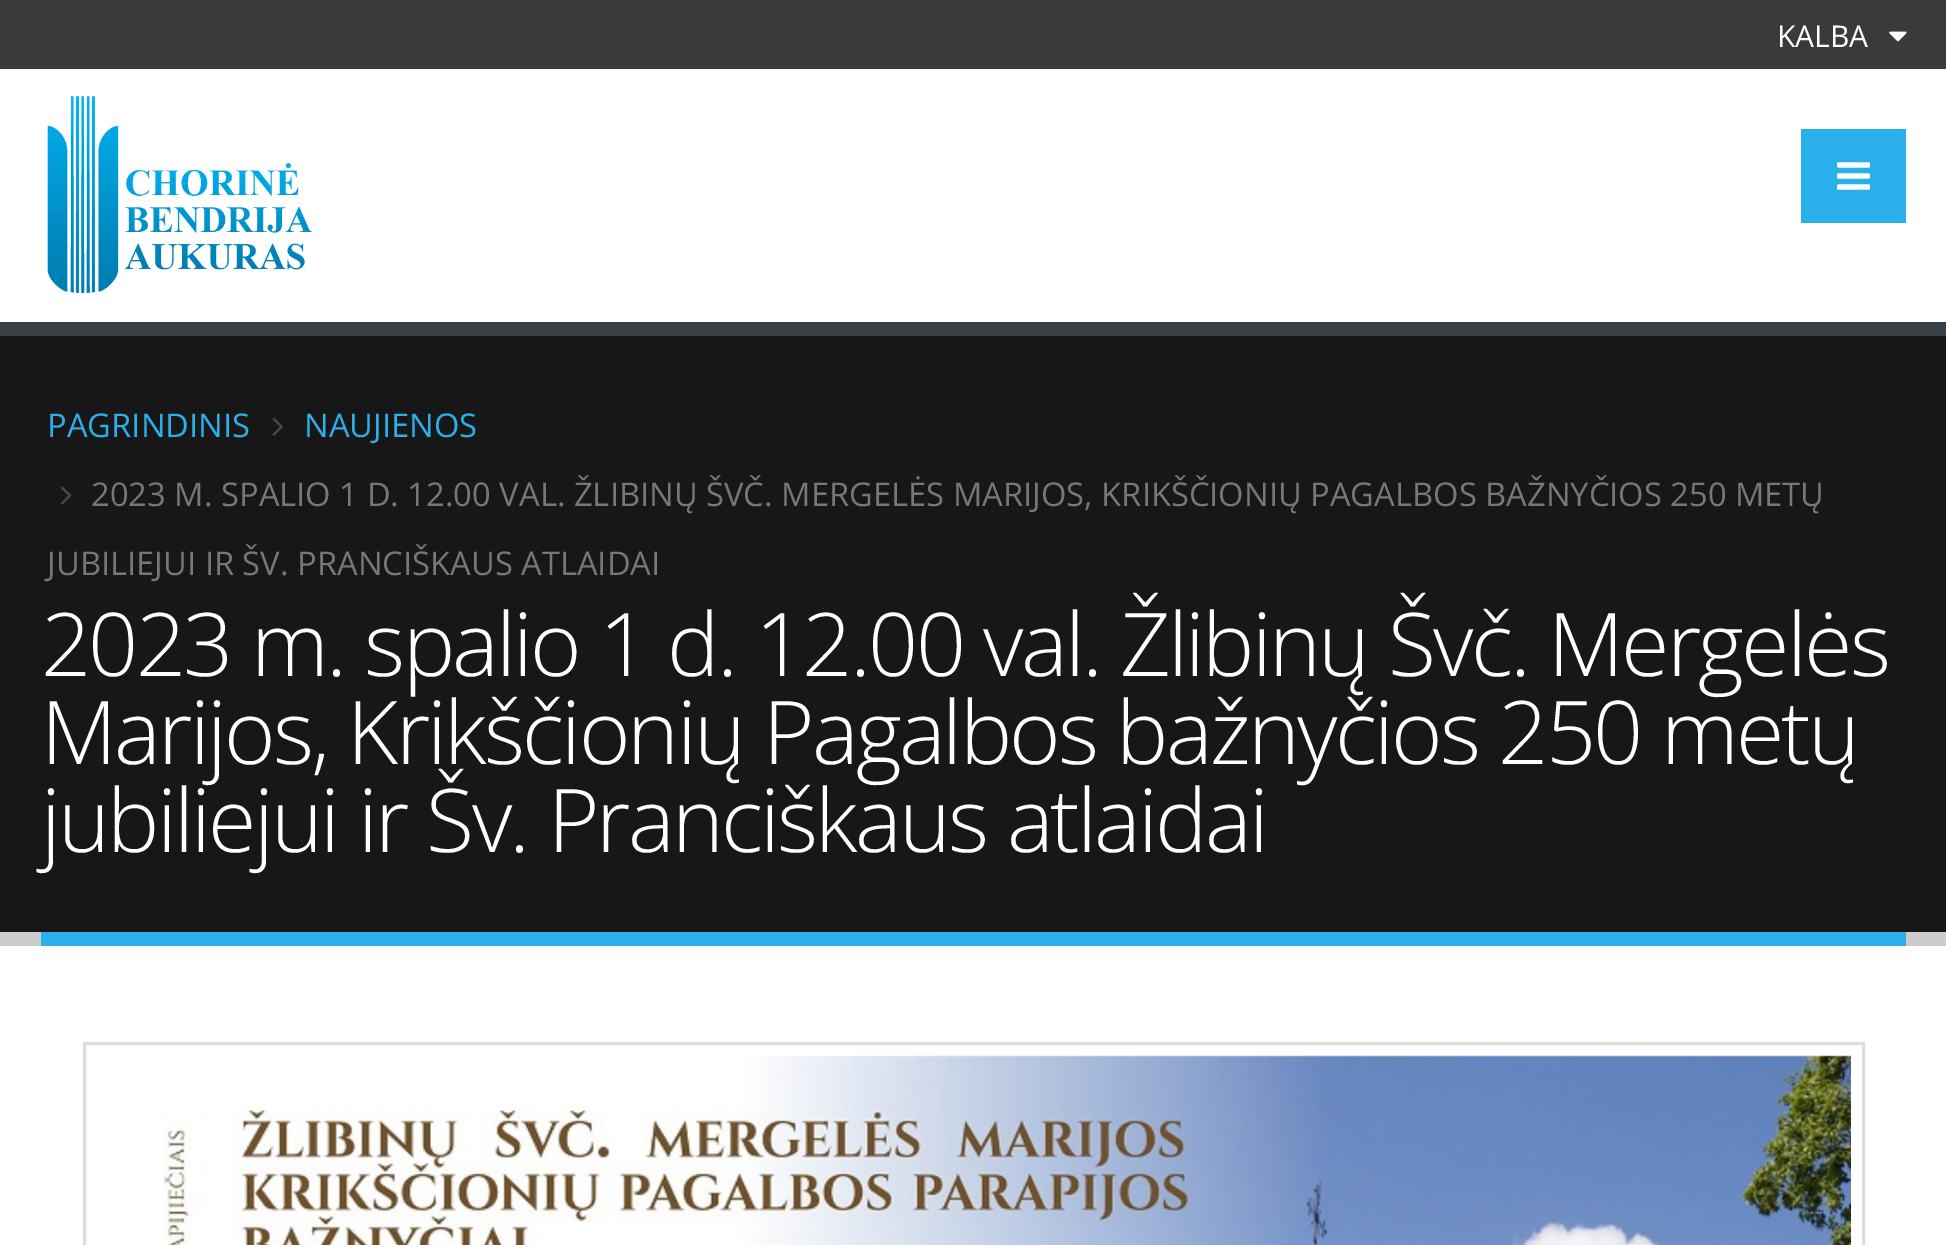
%!PS
<< /PageSize [1946 1245] >> setpagedevice
/rgb { dup -16 bitshift 255 div exch dup -8 bitshift 255 and 255 div exch 255 and 255 div setrgbcolor } def
/font { [ exch dup neg 0 0 3 -1 roll 0 0 ] selectfont } def
/text { moveto show } def
/picture { 5 dict begin { /h /w /y /x /name } { exch def } forall
  gsave x y translate w h scale
  w h 8 [w 0 0 h 0 0] name (r) file false 3 colorimage grestore end } def
0 1245 translate 1 -1 scale
4 setmiterlimit
/s1 { /OpenSans-Regular 30 font 16#FFFFFF rgb } def
/s2 { /OpenSans-Regular 32.73 font 16#2AAFEA rgb } def
/s3 { /OpenSans-Regular 32.73 font 16#777777 rgb } def
16#FFFFFF rgb
0 0 1946 1245 rectfill
16#3A3A3A rgb
0 0 1946 69 rectfill
s1
(KALBA) 1777 47 text
(pic1.raw) 1889 31 18 11 picture
(pic2.raw) 47 96 265 198 picture
16#2AAFEA rgb
1801 129 105 94 rectfill
(pic3.raw) 1837 162 33 28 picture
16#171717 rgb
0 336 1946 596 rectfill
16#384045 rgb
0 322 1946 14 rectfill
16#CCCCCC rgb
0 932 1946 14 rectfill
s2
(PAGRINDINIS) 47 437 text
(pic4.raw) 272 417 11 19 picture
(NAUJIENOS) 304 437 text
(pic5.raw) 60 486 12 19 picture
s3
(2023 M. SPALIO 1 D. 12.00 VAL. ŽLIBINŲ ŠVČ. MERGELĖS MARIJOS, KRIKŠČIONIŲ PAGALBOS BAŽNYČIOS 250 METŲ) 91 506 text
(JUBILIEJUI IR ŠV. PRANCIŠKAUS ATLAIDAI) 47 575 text
16#2AAFEA rgb
41 932 1865 14 rectfill
/OpenSans-Light 88 font
16#FFFFFF rgb
41 676 moveto -2.75 0 (2023 m. spalio 1 d. 12.00 val. Žlibinų Švč. Mergelės) ashow
41 764 moveto -2.75 0 (Marijos, Krikščionių Pagalbos bažnyčios 250 metų) ashow
41 852 moveto -2.75 0 (jubiliejui ir Šv. Pranciškaus atlaidai) ashow
16#DDDDDD rgb
3 setlinewidth
84.5 1043.5 1779 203 rectstroke
(pic6.raw) 163 1055 1688 190 picture
showpage
